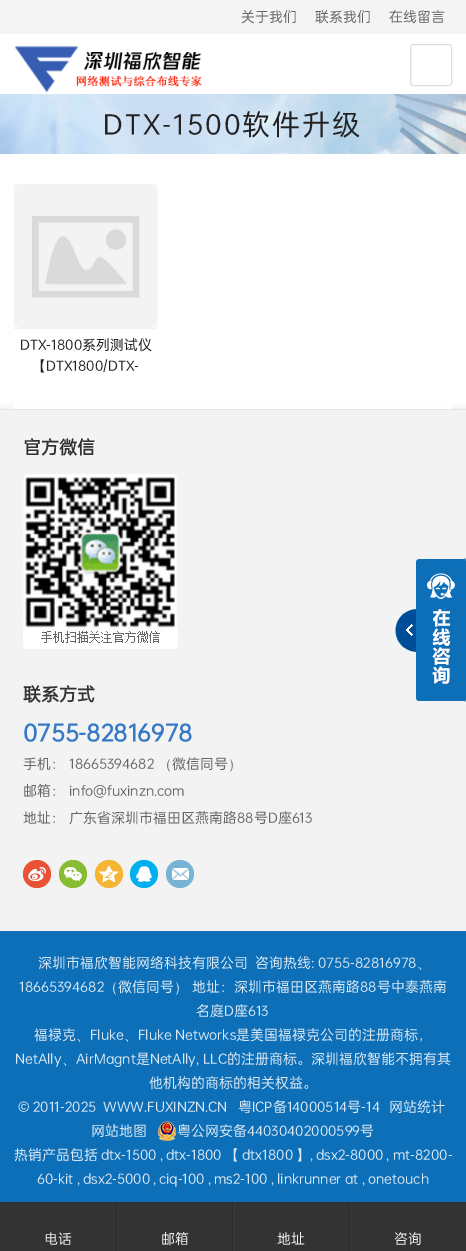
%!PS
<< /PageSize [466 1251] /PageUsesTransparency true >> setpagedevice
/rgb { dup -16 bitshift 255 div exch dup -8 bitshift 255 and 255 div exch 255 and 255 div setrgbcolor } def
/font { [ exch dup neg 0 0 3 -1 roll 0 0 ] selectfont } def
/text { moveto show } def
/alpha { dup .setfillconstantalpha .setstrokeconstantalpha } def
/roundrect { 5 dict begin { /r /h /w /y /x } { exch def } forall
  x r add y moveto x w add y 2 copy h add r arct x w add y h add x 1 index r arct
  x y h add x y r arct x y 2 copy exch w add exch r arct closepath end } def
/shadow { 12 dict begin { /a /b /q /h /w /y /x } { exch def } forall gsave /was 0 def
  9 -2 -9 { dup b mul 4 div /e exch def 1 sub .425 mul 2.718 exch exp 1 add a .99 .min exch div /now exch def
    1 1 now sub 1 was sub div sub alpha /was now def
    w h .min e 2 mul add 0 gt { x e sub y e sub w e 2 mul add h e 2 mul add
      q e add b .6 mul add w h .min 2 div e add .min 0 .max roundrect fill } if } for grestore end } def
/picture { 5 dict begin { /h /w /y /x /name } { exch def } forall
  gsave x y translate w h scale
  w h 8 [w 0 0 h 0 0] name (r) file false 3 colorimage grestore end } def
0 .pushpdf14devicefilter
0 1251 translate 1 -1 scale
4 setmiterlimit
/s1 { /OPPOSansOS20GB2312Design-Regular 14 font 16#666666 rgb } def
/s2 { /OPPOSansOS20GB2312Design-Regular 14 font 16#222222 rgb } def
/s3 { /WenQuanYiZenHei-Medium 14 font 16#222222 rgb } def
/s4 { /OPPOSansOS20GB2312Design-Bold 18 font 16#333333 rgb } def
/s5 { /OPPOSansOS20GB2312Design-Bold 24 font 16#367AC5 rgb } def
/s6 { /WenQuanYiZenHei-Medium 14 font 16#666666 rgb } def
/s7 { /OPPOSansOS20GB2312Design-Regular 14 font 16#DBE9F4 rgb } def
/s8 { /WenQuanYiZenHei-Medium 14 font 16#DBE9F4 rgb } def
/s9 { /OPPOSansOS20GB2312Design-Regular 14 font 16#EEEEEE rgb } def
16#FFFFFF rgb
0 0 466 1251 rectfill
16#F4F4F4 rgb
0 0 466 34 rectfill
s1
(关于我们) 241 22 text
(联系我们) 315 22 text
(在线留言) 389 22 text
(pic1.raw) 14 46 188 46 picture
16#DDDDDD rgb
410.5 44.5 41 41 2.5 roundrect stroke
(pic2.raw) 0 94 466 60 picture
/OPPOSansOS20GB2312Design-Regular 28 font
16#222222 rgb
103 135 moveto 2 0 (DTX-1500软件升级) ashow
16#000000 rgb
0 409 466 522 0 4 0.1 shadow
16#FFFFFF rgb
14 404 438 5 rectfill
16#F2F2F2 rgb
14.5 184.5 142 144 rectstroke
(pic3.raw) 15 185 141 143 picture
s2
(DTX-1800系列测试仪) 20 350 text
s3
(【) 32 371 text
s2
(DTX1800/DTX-) 46 371 text
16#F3F3F3 rgb
0 410 466 521 rectfill
16#E5E5E5 rgb
0 409 466 1 rectfill
s4
(官方微信) 23 454 text
(pic4.raw) 23 474 155 175 picture
(联系方式) 23 701 text
s5
(0755-82816978) 23 742 text
s1
(手机：) 23 769 text
(18665394682) 69 769 text
s6
(（) 158 769 text
s1
(微信同号) 172 769 text
s6
(）) 228 769 text
s1
(邮箱：) 23 796 text
(info@fuxinzn.com) 69 796 text
(地址：) 23 823 text
(广东省深圳市福田区燕南路88号D座613) 69 823 text
(pic5.raw) 23 860 28 28 picture
(pic6.raw) 59 860 28 28 picture
(pic7.raw) 95 860 28 28 picture
(pic8.raw) 130 860 28 28 picture
(pic9.raw) 166 860 28 28 picture
(pic10.raw) 395 558 71 144 picture
16#0D6FB8 rgb
0 931 466 271 rectfill
s7
(深圳市福欣智能网络科技有限公司) 38 968 text
(咨询热线:) 255 968 text
(0755-82816978) 318 968 text
s8
(、) 417 968 text
s7
(18665394682) 19 992 text
s8
(（) 104 992 text
s7
(微信同号) 118 992 text
s8
(）) 174 992 text
s7
(地址：深圳市福田区燕南路88号中泰燕南) 192 992 text
(名庭D座613) 196 1016 text
(福禄克) 34 1040 text
s8
(、) 76 1040 text
s7
(Fluke) 90 1040 text
s8
(、) 124 1040 text
s7
(Fluke) 138 1040 text
(Networks是美国福禄克公司的注册商标，) 175 1040 text
(NetAlly) 15 1064 text
s8
(、) 62 1064 text
s7
(AirMagnt是NetAlly,) 76 1064 text
(LLC的注册商标。深圳福欣智能不拥有其) 203 1064 text
(他机构的商标的相关权益。) 149 1088 text
(©) 18 1112 text
(2011-2025) 33 1112 text
(WWW.FUXINZN.CN) 103 1112 text
(粤ICP备14000514号-14) 238 1112 text
(网站统计) 389 1112 text
(网站地图) 91 1136 text
(pic11.raw) 158 1121 18 20 picture
(粤公网安备44030402000599号) 177 1136 text
(热销产品包括) 14 1160 text
(dtx-1500) 101 1160 text
(,) 160 1160 text
(dtx-1800) 166 1160 text
s8
(【) 225 1160 text
s7
(dtx1800) 242 1160 text
s8
(】) 296 1160 text
s7
(,) 310 1160 text
(dsx2-8000) 316 1160 text
(,) 386 1160 text
(mt-8200-) 393 1160 text
(60-kit) 37 1184 text
(,) 77 1184 text
(dsx2-5000) 83 1184 text
(,) 153 1184 text
(ciq-100) 159 1184 text
(,) 208 1184 text
(ms2-100) 214 1184 text
(,) 271 1184 text
(linkrunner) 277 1184 text
(at) 345 1184 text
(,) 362 1184 text
(onetouch) 368 1184 text
16#333333 rgb
0 1202 466 49 rectfill
16#2B2B2B rgb
116 1202 1 49 rectfill
s9
(电话) 44 1244 text
16#2B2B2B rgb
232 1202 1 49 rectfill
16#383838 rgb
117 1202 1 49 rectfill
s9
(邮箱) 161 1244 text
16#2B2B2B rgb
349 1202 1 49 rectfill
16#383838 rgb
233 1202 1 49 rectfill
s9
(地址) 277 1244 text
16#383838 rgb
350 1202 1 49 rectfill
s9
(咨询) 394 1244 text
.poppdf14devicefilter showpage
